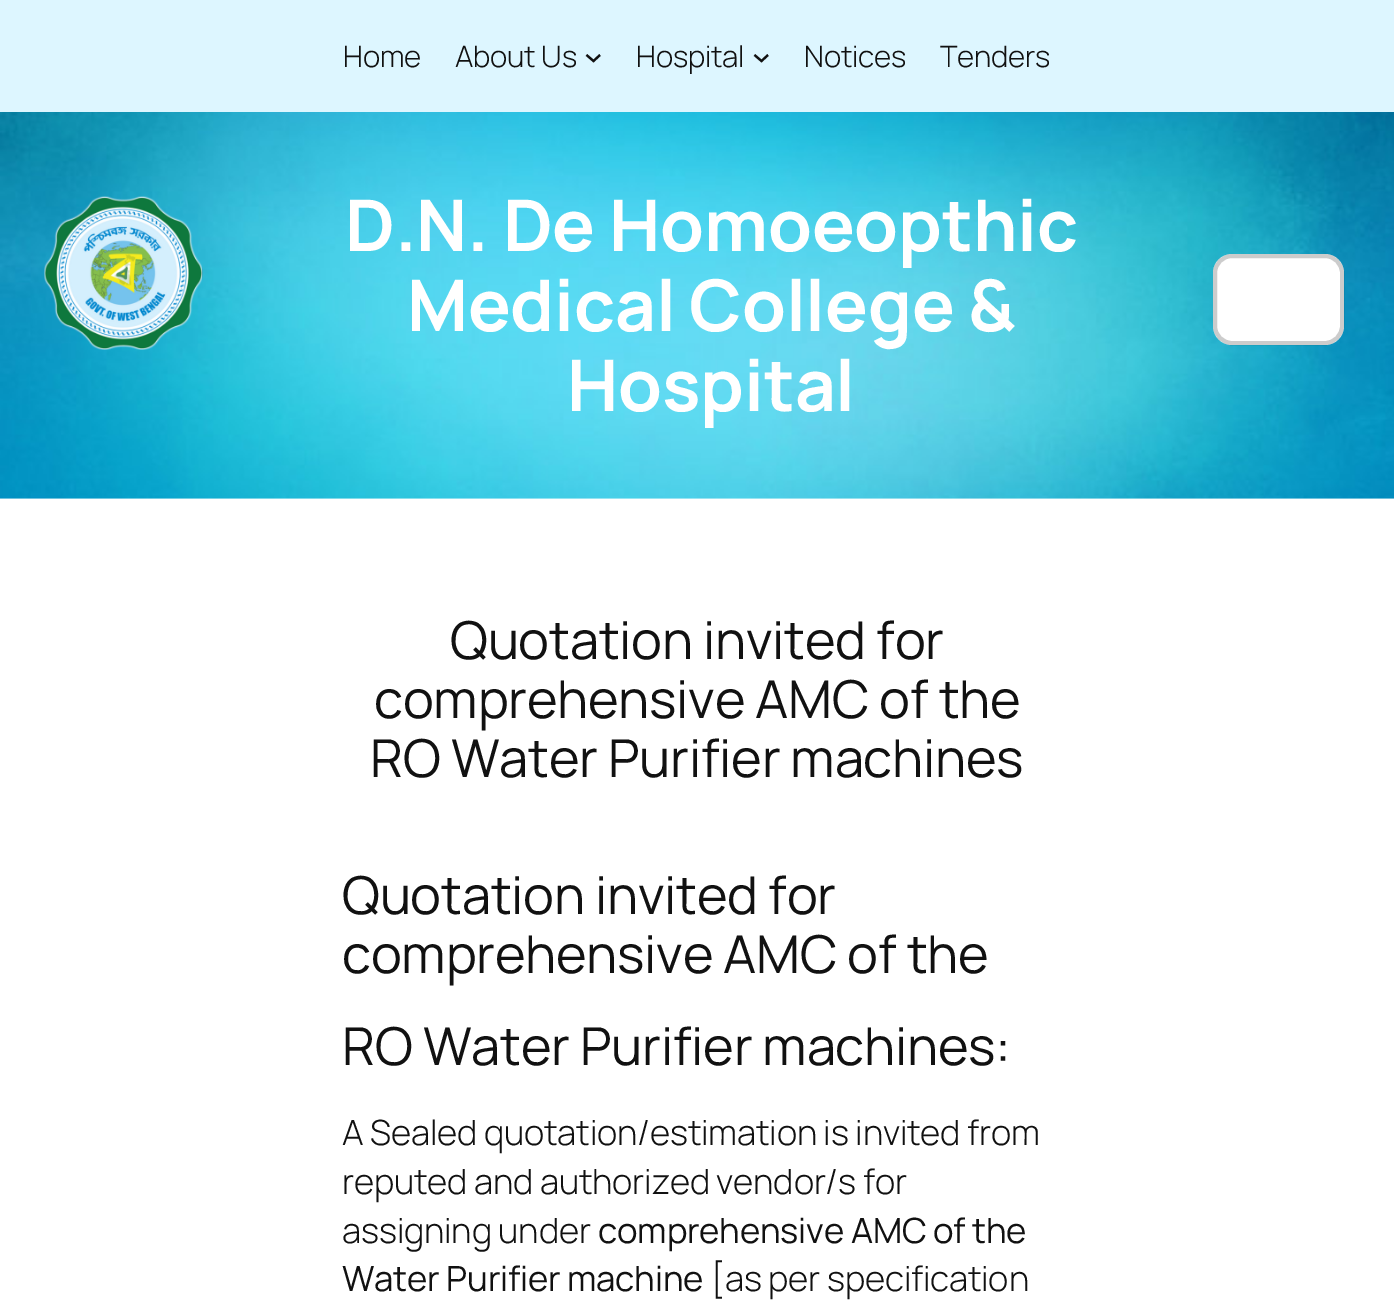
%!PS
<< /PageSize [1394 1310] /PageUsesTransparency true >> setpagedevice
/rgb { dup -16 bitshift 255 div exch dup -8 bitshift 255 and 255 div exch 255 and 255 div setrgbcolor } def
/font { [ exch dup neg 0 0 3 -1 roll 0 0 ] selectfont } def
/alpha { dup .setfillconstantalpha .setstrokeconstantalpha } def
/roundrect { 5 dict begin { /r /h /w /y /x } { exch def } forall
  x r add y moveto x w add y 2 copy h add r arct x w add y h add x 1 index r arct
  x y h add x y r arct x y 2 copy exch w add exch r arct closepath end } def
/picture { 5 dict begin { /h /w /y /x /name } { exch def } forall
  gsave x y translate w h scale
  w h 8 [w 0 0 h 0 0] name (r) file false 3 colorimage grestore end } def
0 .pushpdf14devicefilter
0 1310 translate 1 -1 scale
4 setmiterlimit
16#FFFFFF rgb
0 0 1394 1310 rectfill
16#DDF6FF rgb
0 0 1394 112 rectfill
/Manrope-Light 29.5 font
16#111111 rgb
343 67 moveto -0.2 0 (Home) ashow
455 67 moveto -0.2 0 (About Us) ashow
2.2 setlinewidth
586.5 55 moveto 593.5 61 lineto 600 55 lineto stroke
636 67 moveto -0.2 0 (Hospital) ashow
754.5 55 moveto 761.5 61 lineto 768 55 lineto stroke
804 67 moveto -0.2 0 (Notices) ashow
940 67 moveto -0.2 0 (Tenders) ashow
(pic1.raw) 0 112 1394 387 picture
(pic2.raw) 44 196 159 154 picture
/Manrope-Bold 71.25 font
16#FFFFFF rgb
345 251 moveto -0.2 0 (D.N. De Homoeopthic) ashow
407 331 moveto -0.2 0 (Medical College &) ashow
567 411 moveto -0.2 0 (Hospital) ashow
1213 254 131 91 19 roundrect fill
0.2 alpha
16#000000 rgb
4 setlinewidth
1215 256 127 87 17 roundrect stroke
/Manrope-Regular 52.25 font
1 alpha
16#111111 rgb
450 659 moveto -0.2 0 (Quotation invited for) ashow
374 718 moveto -0.2 0 (comprehensive AMC of the) ashow
370 777 moveto -0.2 0 (RO Water Purifier machines) ashow
342 914 moveto -0.2 0 (Quotation invited for) ashow
342 973 moveto -0.2 0 (comprehensive AMC of the) ashow
342 1065 moveto -0.2 0 (RO Water Purifier machines:) ashow
/Manrope-Light 34.75 font
342 1145 moveto -0.2 0 (A Sealed quotation/estimation is invited from) ashow
342 1194 moveto -0.2 0 (reputed and authorized vendor/s for) ashow
342 1243 moveto -0.2 0 (assigning under) ashow
/Manrope-Regular 34.75 font
598 1243 moveto -0.2 0 (comprehensive AMC of the) ashow
342 1291 moveto -0.2 0 (Water Purifier machine) ashow
/Manrope-Light 34.75 font
711 1291 moveto -0.2 0 ([as per specification) ashow
.poppdf14devicefilter showpage
